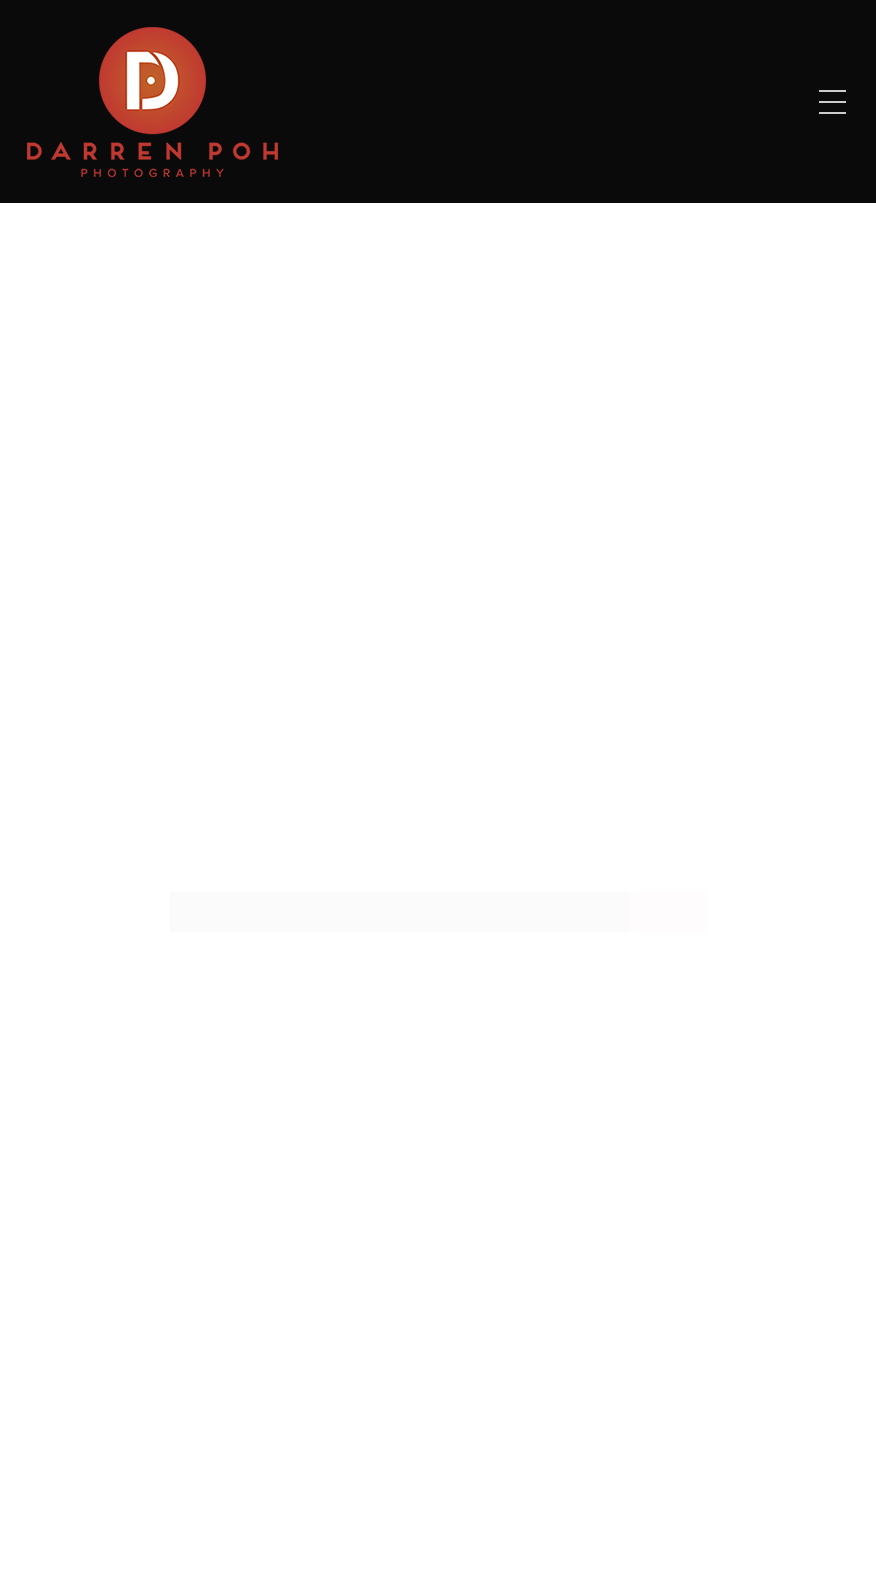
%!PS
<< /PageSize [876 1591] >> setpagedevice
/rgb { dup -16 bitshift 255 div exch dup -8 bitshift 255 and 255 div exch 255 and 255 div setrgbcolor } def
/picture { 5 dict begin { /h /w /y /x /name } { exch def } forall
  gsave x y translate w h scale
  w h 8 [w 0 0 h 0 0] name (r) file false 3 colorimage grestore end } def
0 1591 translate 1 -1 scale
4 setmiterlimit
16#FFFFFF rgb
0 0 876 1591 rectfill
16#0A0A0A rgb
0 0 876 203 rectfill
(pic1.raw) 27 27 251 150 picture
16#CCCCCC rgb
819 90 27 2 rectfill
819 101 27 2 rectfill
819 112 27 2 rectfill
16#FBFBFC rgb
170 892 460 40 rectfill
16#FEFCFC rgb
630 892 76 40 rectfill
showpage
